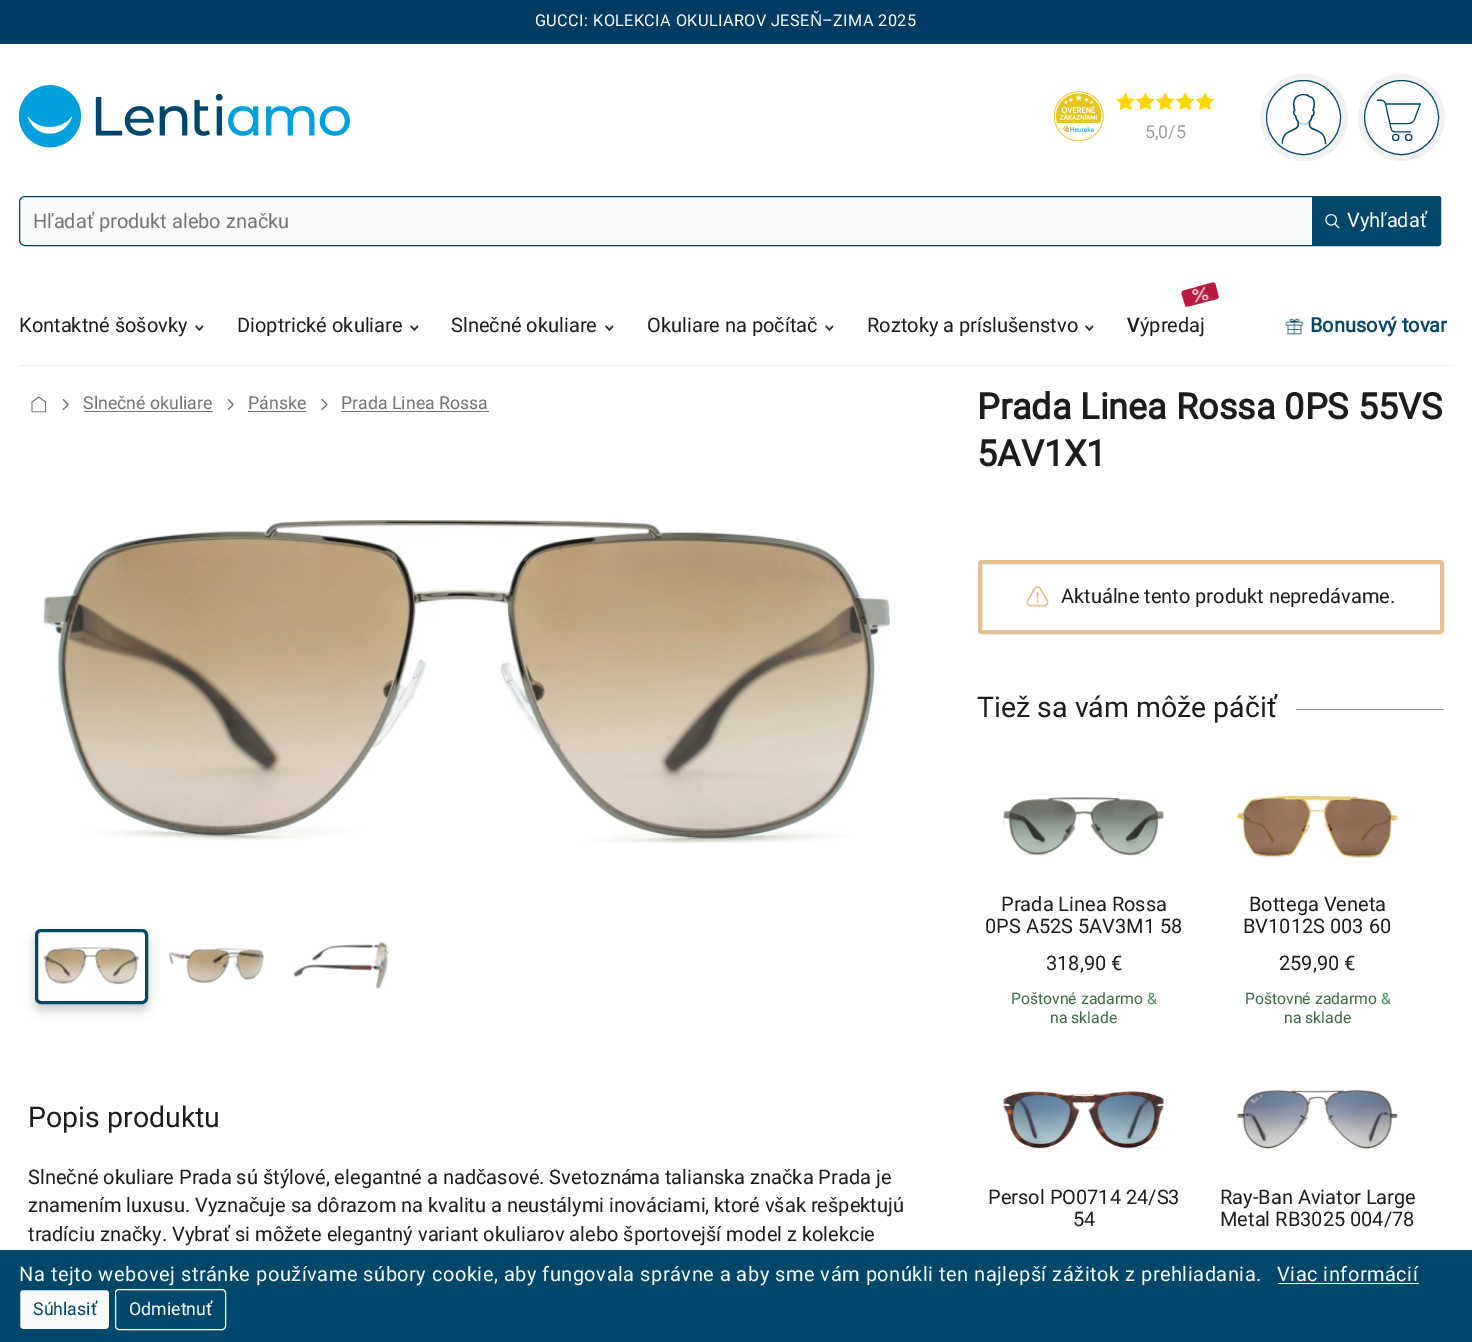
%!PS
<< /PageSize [1472 1342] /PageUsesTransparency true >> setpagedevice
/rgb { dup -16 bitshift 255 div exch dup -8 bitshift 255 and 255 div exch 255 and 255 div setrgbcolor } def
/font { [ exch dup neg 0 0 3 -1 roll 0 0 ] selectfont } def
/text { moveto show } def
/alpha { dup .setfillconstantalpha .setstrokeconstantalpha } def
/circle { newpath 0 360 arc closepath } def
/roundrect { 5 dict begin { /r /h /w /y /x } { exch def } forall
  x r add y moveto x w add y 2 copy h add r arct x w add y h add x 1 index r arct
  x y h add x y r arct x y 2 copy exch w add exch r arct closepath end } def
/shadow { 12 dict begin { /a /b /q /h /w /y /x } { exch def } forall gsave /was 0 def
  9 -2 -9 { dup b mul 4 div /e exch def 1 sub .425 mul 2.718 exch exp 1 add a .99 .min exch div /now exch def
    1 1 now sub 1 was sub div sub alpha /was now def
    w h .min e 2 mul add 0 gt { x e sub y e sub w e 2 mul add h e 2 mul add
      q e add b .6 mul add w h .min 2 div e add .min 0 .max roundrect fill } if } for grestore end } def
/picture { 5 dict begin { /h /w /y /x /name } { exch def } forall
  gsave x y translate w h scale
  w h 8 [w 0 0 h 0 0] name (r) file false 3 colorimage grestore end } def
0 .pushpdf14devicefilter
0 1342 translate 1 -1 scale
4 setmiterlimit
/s1 { /Roboto-Regular 17.75 font 16#9E9E9E rgb } def
/s2 { /Roboto-Regular 20 font 16#747474 rgb } def
/s3 { /Roboto-Regular 20 font 16#FFFFFF rgb } def
/s4 { /Roboto-Regular 20 font 16#1C1C1C rgb } def
/s5 { /NotoSans-SemiBold 20 font 16#1C1C1C rgb } def
/s6 { /Roboto-Bold 20 font 16#00476C rgb } def
/s7 { /Roboto-Regular 17.75 font 16#747474 rgb } def
/s8 { /Roboto-Bold 36 font 16#1C1C1C rgb } def
/s9 { /Roboto-Regular 28.5 font 16#1C1C1C rgb } def
/s10 { /Roboto-Regular 15.75 font 16#396C47 rgb } def
/s11 { /Roboto-Regular 15.75 font 16#4C9160 rgb } def
/s12 { /Roboto-Regular 17.75 font 16#00476C rgb } def
/s13 { /Roboto-Regular 17.75 font 16#FFFFFF rgb } def
16#FFFFFF rgb
0 0 1472 1342 rectfill
16#003B64 rgb
0 0 1472 44 rectfill
/Roboto-Regular 16.25 font
16#FFFFFF rgb
535 26 moveto 0.4 0 (GUCCI: KOLEKCIA OKULIAROV JESE) ashow
/NotoSans-Regular 16.25 font
810 26 moveto 0.4 0 (Ň) ashow
/Roboto-Regular 16.25 font
822 26 moveto 0.4 0 (–ZIMA 2025) ashow
(pic1.raw) 19 85 331 63 picture
(pic2.raw) 1054 91 50 50 picture
(pic3.raw) 1116 93 98 17 picture
(pic4.raw) 1116 93 97 17 picture
s1
(5,0/5) 1145 138 text
16#F1F1F1 rgb
6 setlinewidth
1263 77 82 81 40.5 roundrect stroke
16#FFFFFF rgb
1303.5 117.5 37 circle gsave fill grestore
16#00476C rgb
1 setlinewidth
stroke
(pic5.raw) 1281 94 46 51 picture
16#F1F1F1 rgb
6 setlinewidth
1401.5 117.5 40.5 circle stroke
16#FFFFFF rgb
1401.5 117.5 37 circle gsave fill grestore
16#00476C rgb
1 setlinewidth
stroke
(pic6.raw) 1376 97 45 44 picture
16#FAFAFA rgb
19 196 1422 50 2.5 roundrect fill
16#00476C rgb
1311.5 196.5 129 49 2 roundrect gsave fill grestore
stroke
16#FAFAFA rgb
25 196.5 moveto 1312.5 196.5 lineto 1312.5 245.5 lineto 25 245.5 lineto 22 245.5 19.5 243 19.5 240 curveto 19.5 202 lineto 19.5 199 22 196.5 25 196.5 curveto closepath gsave fill grestore
16#00476C rgb
stroke
s2
(Hľadať produkt alebo značku) 33 228 text
(pic7.raw) 1325 214 15 15 picture
s3
(Vyhľadať) 1347 227 text
16#EEEEEE rgb
19 365 1435 1 rectfill
s4
(Kontaktné šošovky) 19 332 text
(pic8.raw) 195 324 9 8 picture
(Dioptrické okuliare) 237 332 text
(pic8.raw) 410 324 9 8 picture
(Slnečné okuliare) 451 332 text
(pic8.raw) 605 324 9 8 picture
(Okuliare na počítač) 647 332 text
(pic8.raw) 825 324 9 8 picture
(Roztoky a príslušenstvo) 867 332 text
(pic8.raw) 1085 324 9 8 picture
16#BC1B40 rgb
1183.5 290.5 moveto 1212.5 282.5 lineto 1214 282.5 1215.5 283 1215.5 284.5 curveto 1218.5 296 lineto 1219 297 1218.5 298.5 1217 299 curveto 1188 306.5 lineto 1186.5 307 1185 306.5 1185 305 curveto 1181.5 293.5 lineto 1181.5 292 1182 291 1183.5 290.5 curveto closepath fill
(pic9.raw) 1191 287 18 16 picture
s5
(V) 1127 332 text
s4
(ýpredaj) 1140 332 text
(pic10.raw) 1285 318 19 17 picture
s6
(Bonusový tovar) 1310 332 text
(pic11.raw) 31 396 16 17 picture
(pic12.raw) 62 399 7 11 picture
s7
(Slnečné okuliare) 83 409 text
84 411 129 1 rectfill
(pic12.raw) 227 399 7 11 picture
(Pánske) 248 409 text
248 411 58 1 rectfill
(pic13.raw) 321 399 7 11 picture
(Prada Linea Rossa) 341 409 text
341 411 148 1 rectfill
s8
(Prada Linea Rossa 0PS 55VS) 977 419 text
(5AV1X1) 977 466 text
(pic14.raw) 43 520 847 323 picture
gsave
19 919 moveto 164 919 lineto 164 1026 lineto 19 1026 lineto closepath 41 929 moveto 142 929 lineto 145.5 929 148 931.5 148 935 curveto 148 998 lineto 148 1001.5 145.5 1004 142 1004 curveto 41 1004 lineto 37.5 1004 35 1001.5 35 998 curveto 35 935 lineto 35 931.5 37.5 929 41 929 curveto closepath eoclip newpath
16#000000 rgb
35 935 113 75 6 5 0.2 shadow
grestore
16#00476C rgb
3 setlinewidth
36.5 930.5 110 72 4.5 roundrect stroke
(pic15.raw) 43 947 97 38 picture
(pic16.raw) 168 948 97 35 picture
(pic17.raw) 293 942 97 48 picture
16#E6BF95 rgb
4 setlinewidth
980 562 462 70 2 roundrect stroke
(pic18.raw) 1026 586 23 21 picture
s4
(Aktuálne tento produkt nepredávame.) 1061 603 text
s9
(Tiež sa vám môže páčiť) 977 717 text
16#9E9E9E rgb
1296 709 148 1 rectfill
(pic19.raw) 1003 797 1 59 picture
(pic20.raw) 1003 797 161 59 picture
s4
(Prada Linea Rossa) 1001 911 text
(0PS A52S 5AV3M1 58) 985 933 text
(318,90 €) 1046 970 text
s10
(Poštovné zadarmo) 1011 1004 text
s11
(&) 1147 1004 text
s10
(na sklade) 1050 1023 text
(pic22.raw) 1236 797 2 59 picture
(pic21.raw) 1236 796 162 63 picture
s4
(Bottega Veneta) 1249 911 text
(BV1012S 003 60) 1243 933 text
(259,90 €) 1279 970 text
s10
(Poštovné zadarmo) 1245 1004 text
s11
(&) 1381 1004 text
s10
(na sklade) 1284 1023 text
(pic23.raw) 1003 1088 1 65 picture
(pic24.raw) 1003 1091 161 58 picture
s4
(Persol PO0714 24/S3) 988 1204 text
(54) 1073 1226 text
(pic25.raw) 1236 1090 2 60 picture
(pic26.raw) 1236 1090 162 59 picture
(Ray-Ban Aviator Large) 1220 1204 text
(Metal RB3025 004/78) 1220 1226 text
s9
(Popis produktu) 28 1127 text
s4
(Slnečné okuliare Prada sú štýlové, elegantné a nadčasové. Svetoznáma talianska značka Prada je) 28 1184 text
(znamením luxusu. Vyznačuje sa dôrazom na kvalitu a neustálymi inováciami, ktoré však rešpektujú) 28 1212 text
(tradíciu značky. Vybrať si môžete elegantný variant okuliarov alebo športovejší model z kolekcie) 28 1241 text
16#00476C rgb
0 1250 1472 92 rectfill
16#FFFFFF rgb
19 1281 moveto 0.5 0 (Na tejto webovej stránke používame súbory cookie, aby fungovala správne a aby sme vám ponúkli ten najlepší zážitok z prehliadania.) ashow
1277 1281 moveto 0.5 0 (Viac informácií) ashow
16#FAFAFA rgb
1278 1283 141 1 rectfill
19.5 1289.5 90 40 3.5 roundrect gsave fill grestore
16#00476C rgb
1 setlinewidth
stroke
s12
(Súhlasiť) 33 1315 text
16#FAFAFA rgb
115.5 1289.5 110 40 3.5 roundrect stroke
s13
(Odmietnuť) 129 1315 text
.poppdf14devicefilter showpage
